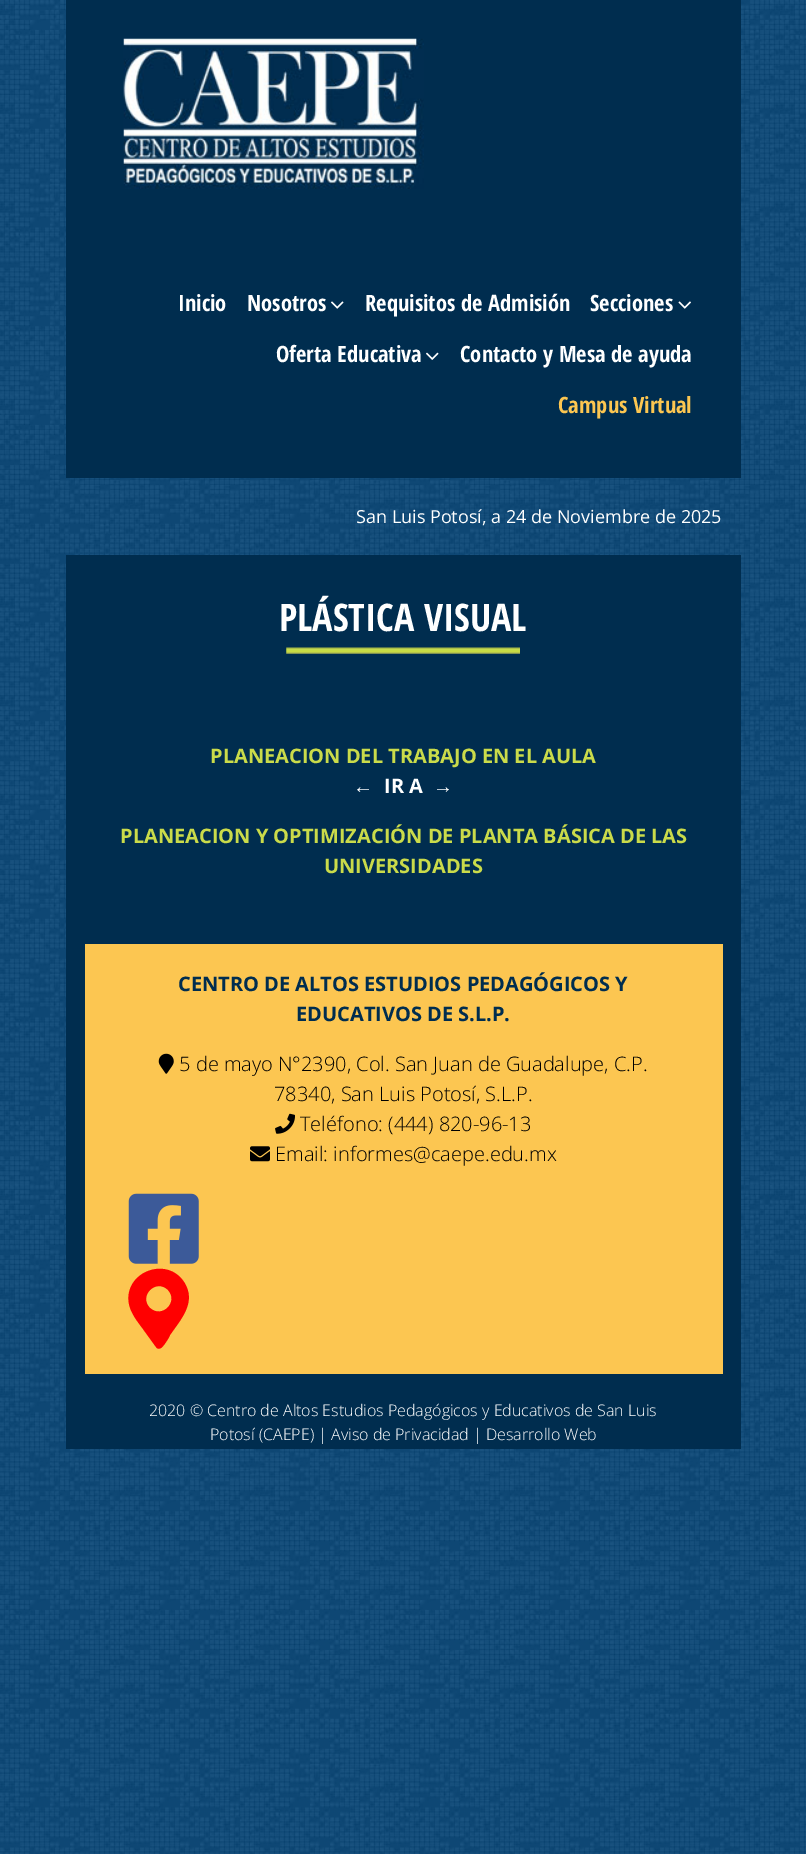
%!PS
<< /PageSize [806 1854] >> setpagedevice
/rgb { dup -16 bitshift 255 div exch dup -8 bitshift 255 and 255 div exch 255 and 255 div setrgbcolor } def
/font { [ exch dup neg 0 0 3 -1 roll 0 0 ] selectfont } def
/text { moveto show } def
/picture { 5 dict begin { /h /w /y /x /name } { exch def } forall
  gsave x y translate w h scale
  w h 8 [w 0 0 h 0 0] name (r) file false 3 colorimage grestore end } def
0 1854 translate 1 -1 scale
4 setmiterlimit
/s1 { /OpenSansCondensed-Bold 22.5 font 16#FFFFFF rgb } def
/s2 { /OpenSansCondensed-Bold 22.5 font 16#FCC651 rgb } def
/s3 { /OpenSans-Regular 18 font 16#FFFFFF rgb } def
/s4 { /OpenSansCondensed-Bold 38 font 16#FFFFFF rgb } def
/s5 { /OpenSans-Bold 20 font 16#CADB4A rgb } def
/s6 { /LiberationSans-Bold 20 font 16#FFFFFF rgb } def
/s7 { /OpenSans-Bold 20 font 16#FFFFFF rgb } def
/s8 { /OpenSans-Bold 20 font 16#002D4F rgb } def
/s9 { /OpenSans-Light 20 font 16#000000 rgb } def
/s10 { /OpenSans-Light 16 font 16#FFFFFF rgb } def
16#FFFFFF rgb
0 0 806 1854 rectfill
(pic1.raw) 0 0 806 1854 picture
16#002D4F rgb
66 0 675 478 rectfill
(pic2.raw) 123 38 301 151 picture
s1
(Inicio) 178 311 text
(Nosotros) 247 311 text
(pic3.raw) 331 301 13 8 picture
(Requisitos de Admisión) 365 311 text
(Secciones) 590 311 text
(pic4.raw) 678 301 13 8 picture
(Oferta Educativa) 276 362 text
(pic5.raw) 426 352 13 8 picture
(Contacto y Mesa de ayuda) 460 362 text
s2
(Campus Virtual) 558 413 text
s3
(San Luis Potosí, a 24 de Noviembre de 2025) 356 523 text
16#002D4F rgb
66 555 675 894 rectfill
(pic6.raw) 286 647 234 7 picture
s4
(PLÁSTICA VISUAL) 279 631 text
s5
(PLANEACION DEL TRABAJO EN EL AULA) 210 763 text
s6
(←) 353 793 text
s7
(IR A) 384 793 text
s6
(→) 433 793 text
s5
(PLANEACION Y OPTIMIZACIÓN DE PLANTA BÁSICA DE LAS) 120 843 text
(UNIVERSIDADES) 324 873 text
16#FCC651 rgb
85 944 638 430 rectfill
s8
(CENTRO DE ALTOS ESTUDIOS PEDAGÓGICOS Y) 178 991 text
(EDUCATIVOS DE S.L.P.) 296 1021 text
(pic7.raw) 158 1053 16 21 picture
s9
(5 de mayo N°2390, Col. San Juan de Guadalupe, C.P.) 179 1071 text
(78340, San Luis Potosí, S.L.P.) 274 1101 text
(pic8.raw) 275 1113 20 21 picture
(Teléfono: \(444\) 820-96-13) 300 1131 text
(pic9.raw) 250 1146 20 16 picture
(Email: informes@caepe.edu.mx) 275 1161 text
(pic10.raw) 128 1193 71 71 picture
16#FF0000 rgb
156 1347 moveto 143 1329 lineto 138 1322 131 1314 129 1304 curveto 123 1273 166 1255 184 1282 curveto 197 1302 181 1319 170 1335 curveto 169 1338 163 1347 161 1348 curveto 159 1349 157 1349 156 1347 curveto closepath 150 1308 moveto 162 1319 179 1302 168 1290 curveto 156 1278 138 1296 150 1308 curveto closepath fill
s10
(2020 © Centro de Altos Estudios Pedagógicos y Educativos de San Luis) 149 1416 text
(Potosí \(CAEPE\) | Aviso de Privacidad | Desarrollo Web) 210 1440 text
showpage
